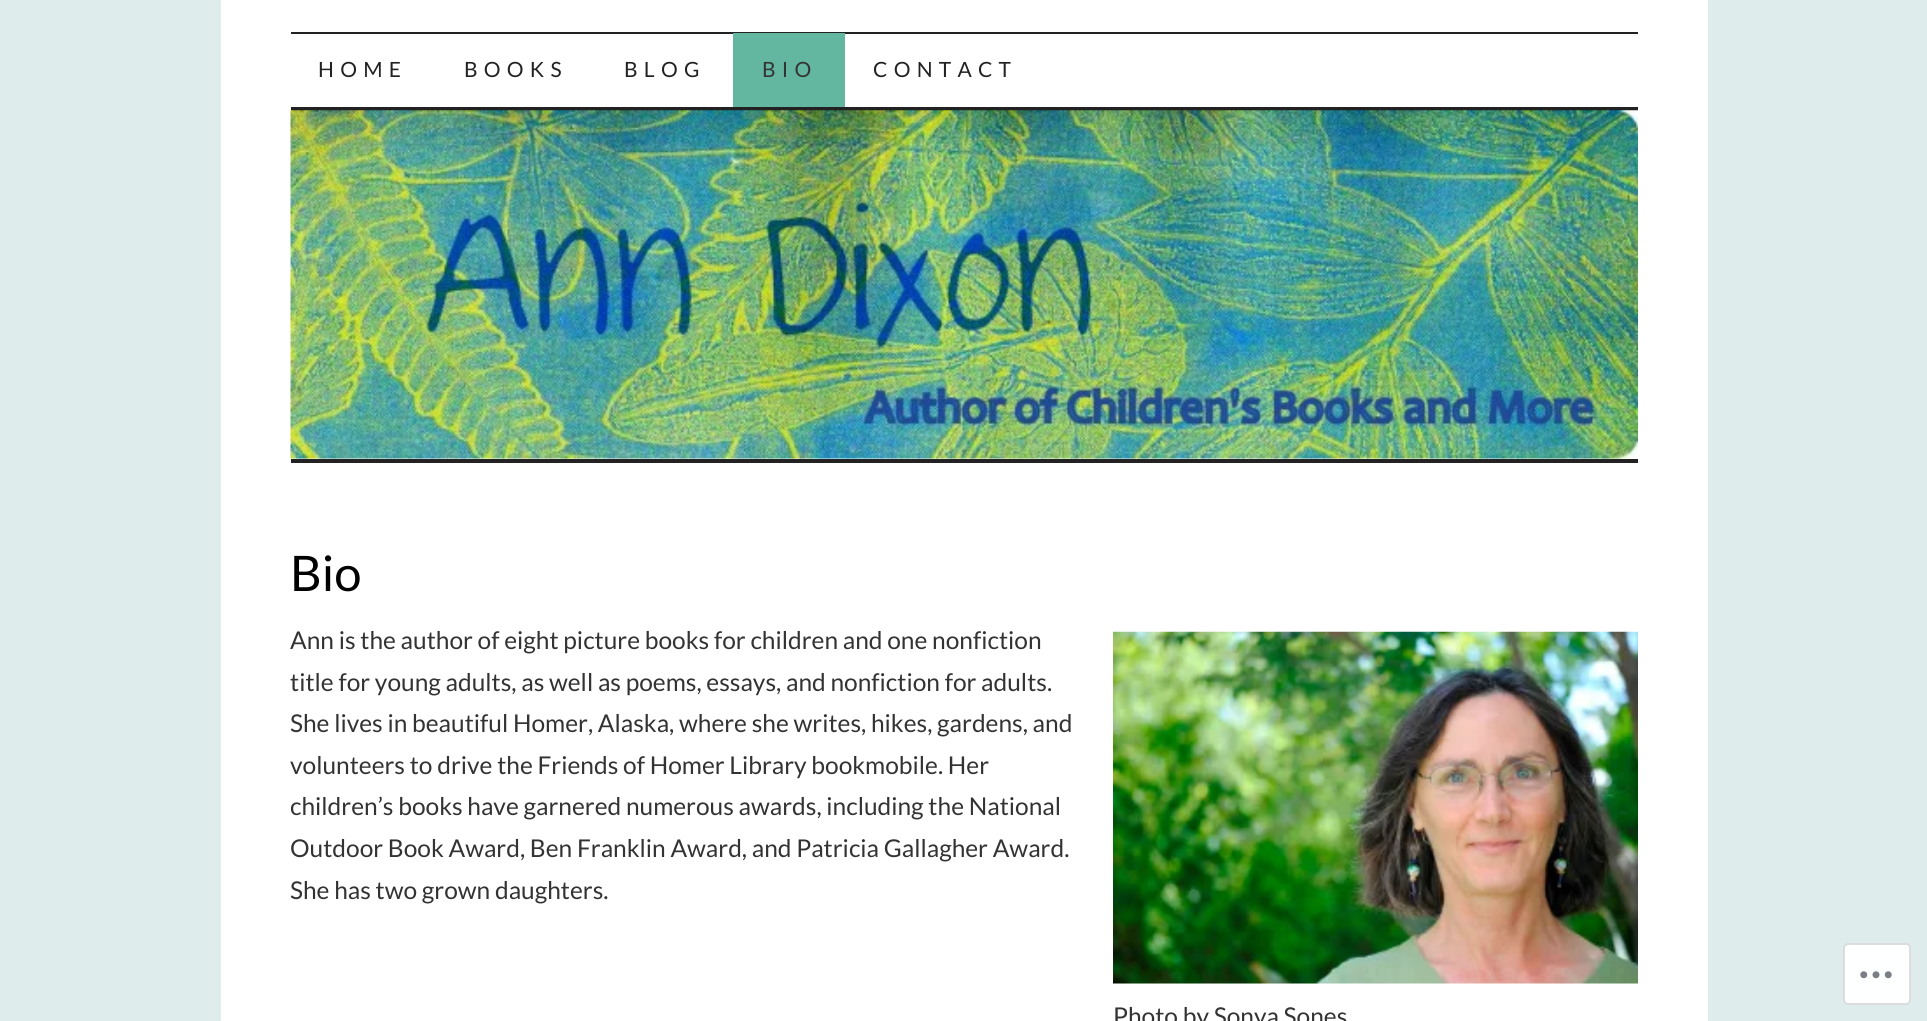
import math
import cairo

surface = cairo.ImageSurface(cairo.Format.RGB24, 1927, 1021)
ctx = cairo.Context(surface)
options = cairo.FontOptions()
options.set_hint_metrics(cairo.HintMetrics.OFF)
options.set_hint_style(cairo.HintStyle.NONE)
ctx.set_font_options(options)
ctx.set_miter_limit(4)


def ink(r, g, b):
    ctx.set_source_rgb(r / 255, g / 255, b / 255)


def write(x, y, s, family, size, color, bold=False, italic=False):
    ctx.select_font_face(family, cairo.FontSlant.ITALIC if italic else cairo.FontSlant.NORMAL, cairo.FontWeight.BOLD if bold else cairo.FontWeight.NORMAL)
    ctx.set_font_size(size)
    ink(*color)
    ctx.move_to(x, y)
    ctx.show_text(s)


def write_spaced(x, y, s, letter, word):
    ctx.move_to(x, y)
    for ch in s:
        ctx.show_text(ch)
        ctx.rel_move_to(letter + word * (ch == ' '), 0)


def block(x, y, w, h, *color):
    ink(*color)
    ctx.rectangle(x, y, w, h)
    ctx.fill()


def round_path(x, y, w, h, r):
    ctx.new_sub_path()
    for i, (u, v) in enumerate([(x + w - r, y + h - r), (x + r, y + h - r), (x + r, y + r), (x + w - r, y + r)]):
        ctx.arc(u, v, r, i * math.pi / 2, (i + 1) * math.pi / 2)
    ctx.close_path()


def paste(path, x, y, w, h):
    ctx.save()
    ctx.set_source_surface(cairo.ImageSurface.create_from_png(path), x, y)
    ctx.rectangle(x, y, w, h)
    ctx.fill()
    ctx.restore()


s1 = dict(family="Lato", size=49, color=(0, 0, 0))
s2 = dict(family="Lato", size=24.5, color=(51, 51, 51))

ink(222, 236, 236)
ctx.paint()
block(221, 0, 1487, 1021, 255, 255, 255)
block(291, 32, 1347, 2, 34, 34, 34)
block(291, 107, 1347, 4, 34, 34, 34)
ctx.select_font_face("Lato")
ctx.set_font_size(21)
write_spaced(318, 77, "HOME", 6.25, 0)
write_spaced(464, 77, "BOOKS", 6.25, 0)
write_spaced(624, 77, "BLOG", 6.25, 0)
block(733, 33, 112, 74, 99, 183, 160)
ink(51, 51, 51)
write_spaced(762, 77, "BIO", 6.25, 0)
ink(34, 34, 34)
write_spaced(873, 77, "CONTACT", 6.25, 0)
paste("pic1.png", 290, 110, 1348, 349)
block(291, 459, 1347, 4, 34, 34, 34)
write(290, 591, "Bio", **s1)
write(290, 649, "Ann is the author of eight picture books for children and one nonfiction", **s2)
write(290, 691, "title for young adults, as well as poems, essays, and nonfiction for adults.", **s2)
write(290, 732, "She lives in beautiful Homer, Alaska, where she writes, hikes, gardens, and", **s2)
write(290, 774, "volunteers to drive the Friends of Homer Library bookmobile. Her", **s2)
write(290, 815, "children’s books have garnered numerous awards, including the National", **s2)
write(290, 857, "Outdoor Book Award, Ben Franklin Award, and Patricia Gallagher Award.", **s2)
write(290, 899, "She has two grown daughters.", **s2)
paste("pic2.png", 1113, 631, 525, 353)
write(1113, 1025, "Photo by Sonya Sones", **s2)
ink(254, 255, 255)
round_path(1844, 944, 66, 60, 4)
ctx.fill_preserve()
ink(220, 220, 222)
ctx.stroke()
paste("pic3.png", 1860, 971, 32, 8)
surface.write_to_png("screenshot.png")
